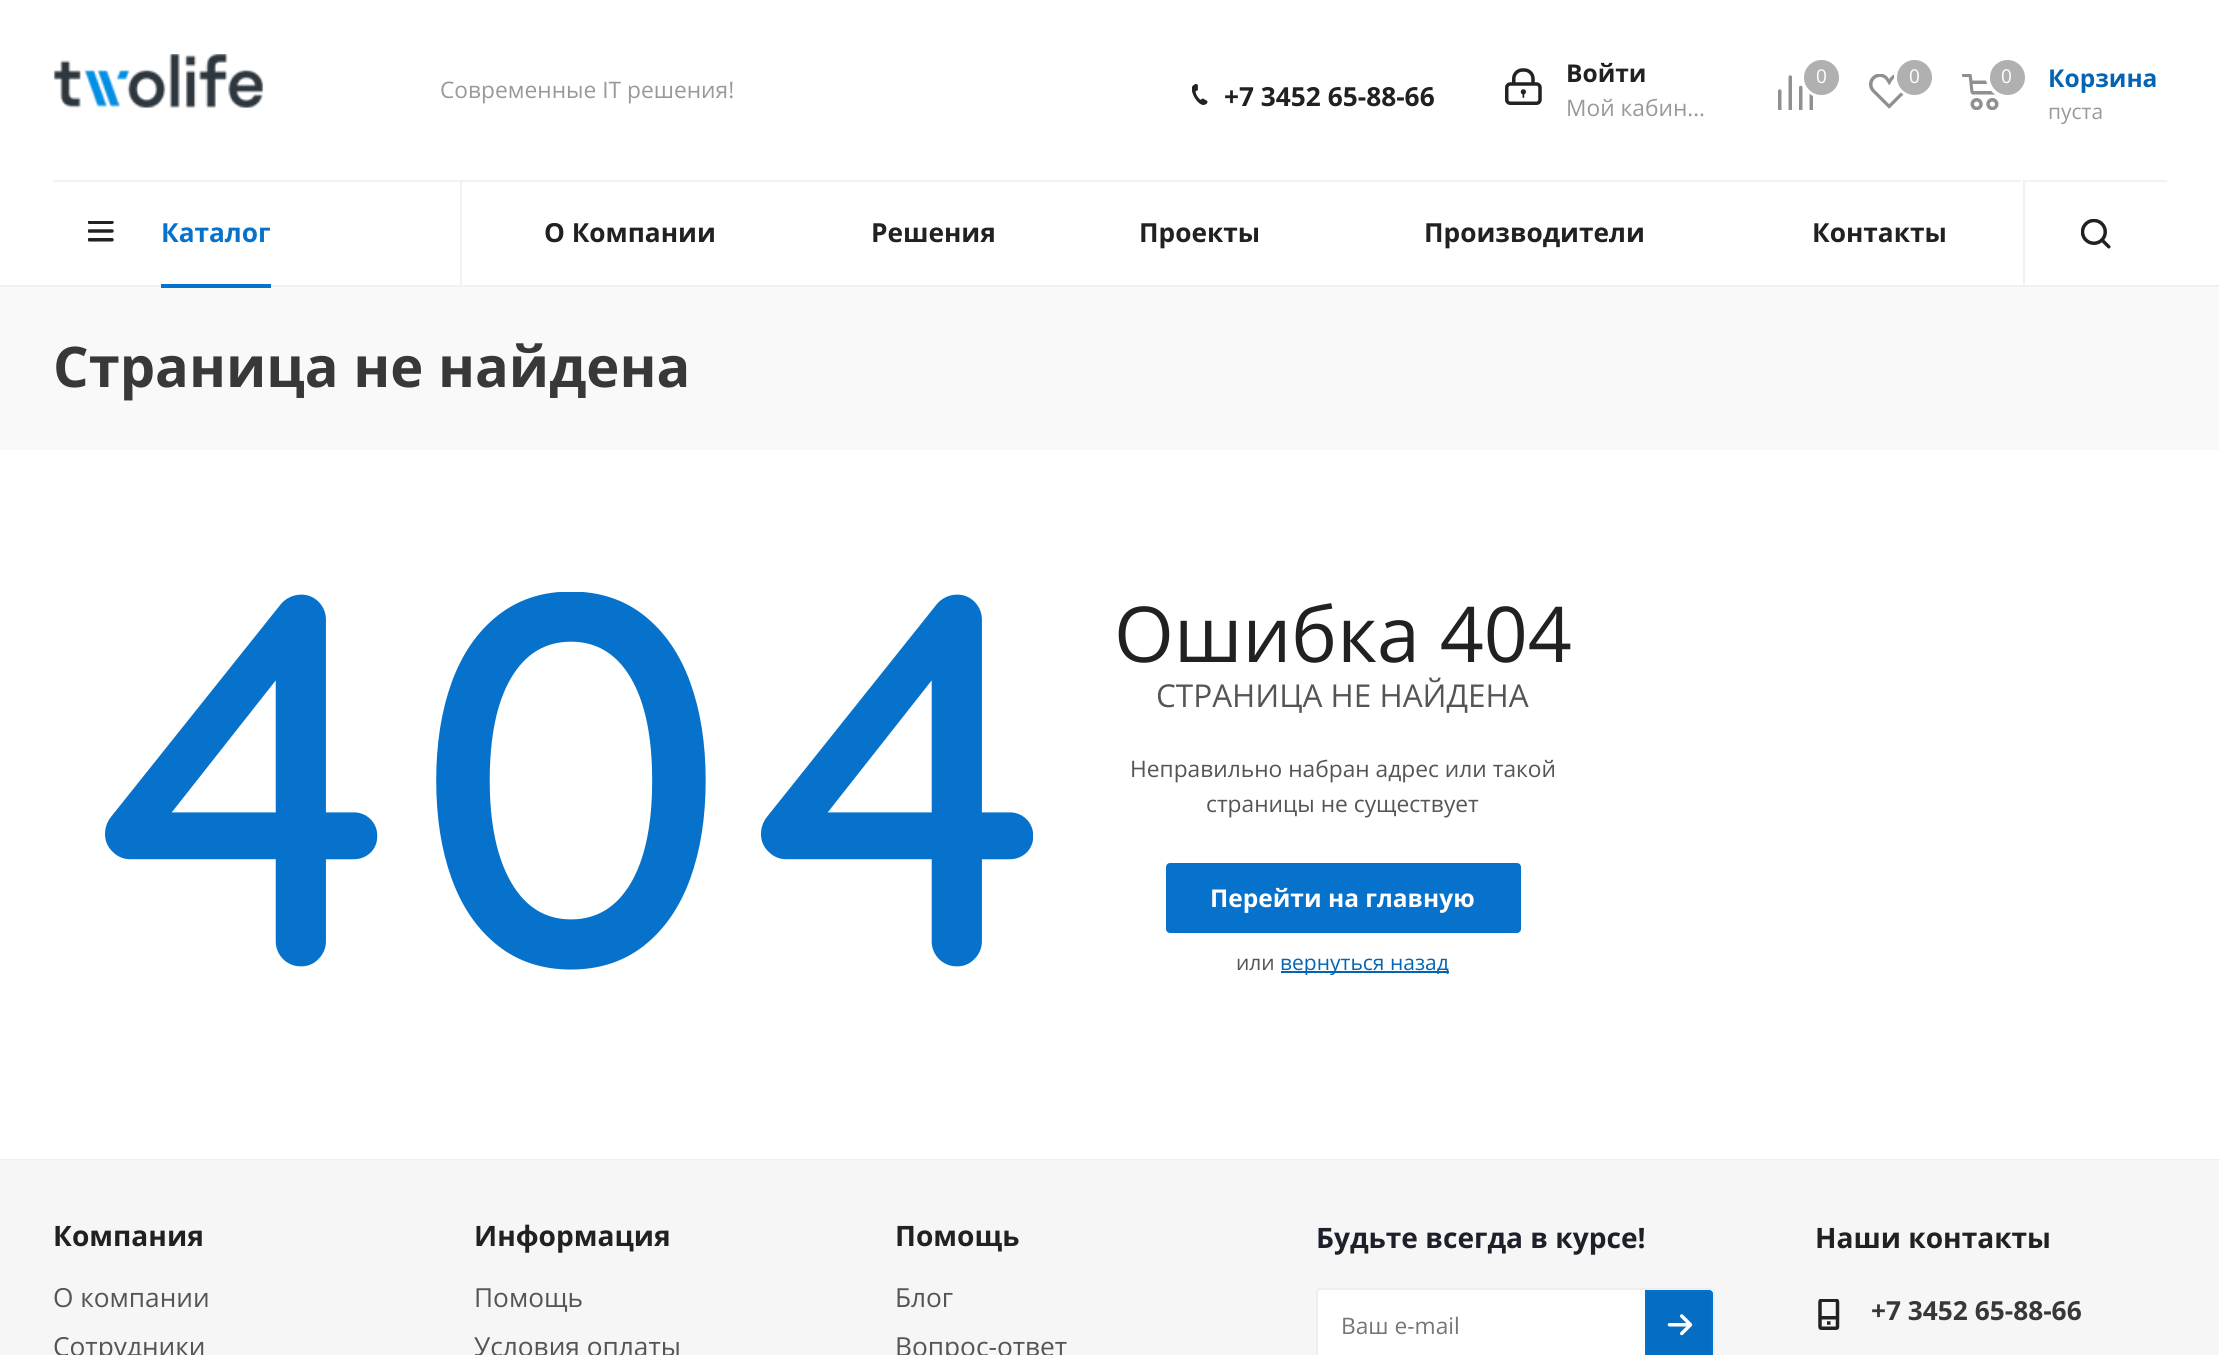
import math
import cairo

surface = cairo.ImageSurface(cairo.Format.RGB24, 2219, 1355)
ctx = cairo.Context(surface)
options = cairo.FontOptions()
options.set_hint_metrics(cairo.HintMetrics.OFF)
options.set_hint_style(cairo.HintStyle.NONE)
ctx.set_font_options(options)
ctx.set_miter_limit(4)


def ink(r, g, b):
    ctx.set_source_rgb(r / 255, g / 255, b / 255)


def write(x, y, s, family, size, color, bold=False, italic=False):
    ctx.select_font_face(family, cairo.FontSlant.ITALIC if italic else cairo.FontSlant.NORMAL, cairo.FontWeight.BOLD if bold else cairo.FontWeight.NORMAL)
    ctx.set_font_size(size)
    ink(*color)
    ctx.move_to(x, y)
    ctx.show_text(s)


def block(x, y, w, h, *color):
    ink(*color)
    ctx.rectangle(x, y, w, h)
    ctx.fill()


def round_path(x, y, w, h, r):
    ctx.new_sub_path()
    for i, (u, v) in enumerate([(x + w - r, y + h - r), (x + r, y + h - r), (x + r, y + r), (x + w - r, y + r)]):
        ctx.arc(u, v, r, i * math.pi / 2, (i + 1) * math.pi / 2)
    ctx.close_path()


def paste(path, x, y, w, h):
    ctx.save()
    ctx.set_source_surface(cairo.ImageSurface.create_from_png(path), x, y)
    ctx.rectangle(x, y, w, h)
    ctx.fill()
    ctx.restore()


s1 = dict(family="Open Sans", size=22.75, color=(153, 153, 153))
s2 = dict(family="Open Sans", size=26.25, color=(33, 33, 33), bold=True)
s3 = dict(family="Open Sans", size=24.5, color=(33, 33, 33), bold=True)
s4 = dict(family="Open Sans", size=19, color=(255, 255, 255))
s5 = dict(family="Open Sans", size=24.5, color=(4, 100, 179), bold=True)
s6 = dict(family="Open Sans", size=21, color=(153, 153, 153))
s7 = dict(family="Open Sans", size=26.25, color=(6, 114, 203), bold=True)
s8 = dict(family="Open Sans", size=56, color=(56, 56, 56), bold=True)
s9 = dict(family="Open Sans", size=77, color=(33, 33, 33))
s10 = dict(family="Open Sans", size=31.5, color=(85, 85, 85))
s11 = dict(family="Open Sans", size=22.75, color=(85, 85, 85))
s12 = dict(family="Open Sans", size=24.5, color=(255, 255, 255), bold=True)
s13 = dict(family="Open Sans", size=21, color=(85, 85, 85))
s14 = dict(family="Open Sans", size=21, color=(4, 100, 179))
s15 = dict(family="Open Sans", size=28.1, color=(33, 33, 33), bold=True)
s16 = dict(family="Open Sans", size=26.25, color=(85, 85, 85))
s17 = dict(family="Open Sans", size=28.1, color=(29, 32, 41), bold=True)
s18 = dict(family="Open Sans", size=22.75, color=(117, 117, 117))
s19 = dict(family="Open Sans", size=26.25, color=(56, 56, 56), bold=True)

ink(255, 255, 255)
ctx.paint()
paste("pic1.png", 53, 54, 211, 54)
write(440, 98, "Современные IT решения!", **s1)
paste("pic2.png", 1192, 84, 16, 21)
write(1224, 106, "+7 3452 65-88-66", **s2)
paste("pic3.png", 1505, 68, 37, 37)
write(1566, 82, "Войти", **s3)
write(1566, 116, "Мой кабин…", **s1)
paste("pic4.png", 1778, 75, 35, 35)
ctx.arc(1822, 77, 19, 0, 2 * math.pi)
ink(255, 255, 255)
ctx.set_line_width(4)
ctx.stroke()
ink(176, 176, 176)
ctx.arc(1821.5, 77.5, 17.5, 0, 2 * math.pi)
ctx.fill()
write(1816, 83, "0", **s4)
paste("pic5.png", 1869, 74, 35, 35)
ctx.arc(1915, 77, 19, 0, 2 * math.pi)
ctx.stroke()
ink(176, 176, 176)
ctx.arc(1914.5, 77.5, 17.5, 0, 2 * math.pi)
ctx.fill()
write(1909, 83, "0", **s4)
paste("pic6.png", 1962, 74, 37, 36)
ctx.arc(2007, 77, 19, 0, 2 * math.pi)
ctx.stroke()
ctx.arc(2007, 77, 19, 0, 2 * math.pi)
ctx.stroke()
ink(176, 176, 176)
ctx.arc(2007.5, 77.5, 17.5, 0, 2 * math.pi)
ctx.fill()
write(2001, 83, "0", **s4)
write(2048, 87, "Корзина", **s5)
write(2048, 119, "пуста", **s6)
block(0, 285, 2219, 2, 242, 242, 242)
block(53, 180, 1968, 2, 242, 242, 242)
block(460, 182, 2, 103, 242, 242, 242)
paste("pic7.png", 88, 221, 26, 21)
write(161, 242, "Каталог", **s7)
block(0, 287, 2219, 163, 249, 249, 249)
block(161, 284, 110, 4, 6, 114, 203)
write(544, 242, "О Компании", **s2)
write(871, 242, "Решения", **s2)
write(1139, 242, "Проекты", **s2)
write(1424, 242, "Производители", **s2)
write(1812, 242, "Контакты", **s2)
block(2023, 180, 144, 2, 242, 242, 242)
block(2023, 182, 2, 103, 242, 242, 242)
paste("pic8.png", 2081, 219, 30, 30)
write(53, 387, "Страница не найдена", **s8)
paste("pic9.png", 105, 592, 928, 378)
write(1114, 662, "Ошибка 404", **s9)
write(1156, 707, "СТРАНИЦА НЕ НАЙДЕНА", **s10)
write(1130, 777, "Неправильно набран адрес или такой", **s11)
write(1206, 812, "страницы не существует", **s11)
ink(6, 114, 203)
round_path(1167, 864, 353, 68, 3)
ctx.fill_preserve()
ctx.set_line_width(2)
ctx.stroke()
write(1210, 907, "Перейти на главную", **s12)
write(1236, 970, "или", **s13)
block(1281, 971, 168, 2, 4, 100, 179)
write(1280, 970, "вернуться назад", **s14)
block(0, 1159, 2219, 1, 238, 238, 238)
block(0, 1160, 2219, 195, 246, 246, 247)
write(53, 1246, "Компания", **s15)
write(53, 1307, "О компании", **s16)
write(53, 1356, "Сотрудники", **s16)
write(474, 1246, "Информация", **s15)
write(474, 1307, "Помощь", **s16)
write(474, 1356, "Условия оплаты", **s16)
write(895, 1246, "Помощь", **s15)
write(895, 1307, "Блог", **s16)
write(895, 1356, "Вопрос-ответ", **s16)
write(1316, 1248, "Будьте всегда в курсе!", **s17)
ink(255, 255, 255)
round_path(1317, 1289, 397, 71, 3)
ctx.fill_preserve()
ink(238, 238, 238)
ctx.stroke()
write(1341, 1334, "Ваш e-mail", **s18)
ink(5, 109, 194)
ctx.new_path()
ctx.move_to(1645, 1290)
ctx.line_to(1709, 1290)
ctx.curve_to(1711, 1290, 1713, 1292, 1713, 1294)
ctx.line_to(1713, 1355)
ctx.curve_to(1713, 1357, 1711, 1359, 1709, 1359)
ctx.line_to(1645, 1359)
ctx.close_path()
ctx.fill()
paste("pic10.png", 1667, 1314, 26, 22)
ctx.new_path()
ctx.move_to(1646, 1291)
ctx.line_to(1709, 1291)
ctx.curve_to(1710.5, 1291, 1712, 1292.5, 1712, 1294)
ctx.line_to(1712, 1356)
ctx.curve_to(1712, 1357.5, 1710.5, 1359, 1709, 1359)
ctx.line_to(1646, 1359)
ctx.close_path()
ink(6, 114, 203)
ctx.stroke()
write(1815, 1248, "Наши контакты", **s15)
paste("pic11.png", 1818, 1299, 22, 31)
write(1871, 1320, "+7 3452 65-88-66", **s19)
surface.write_to_png("screenshot.png")
